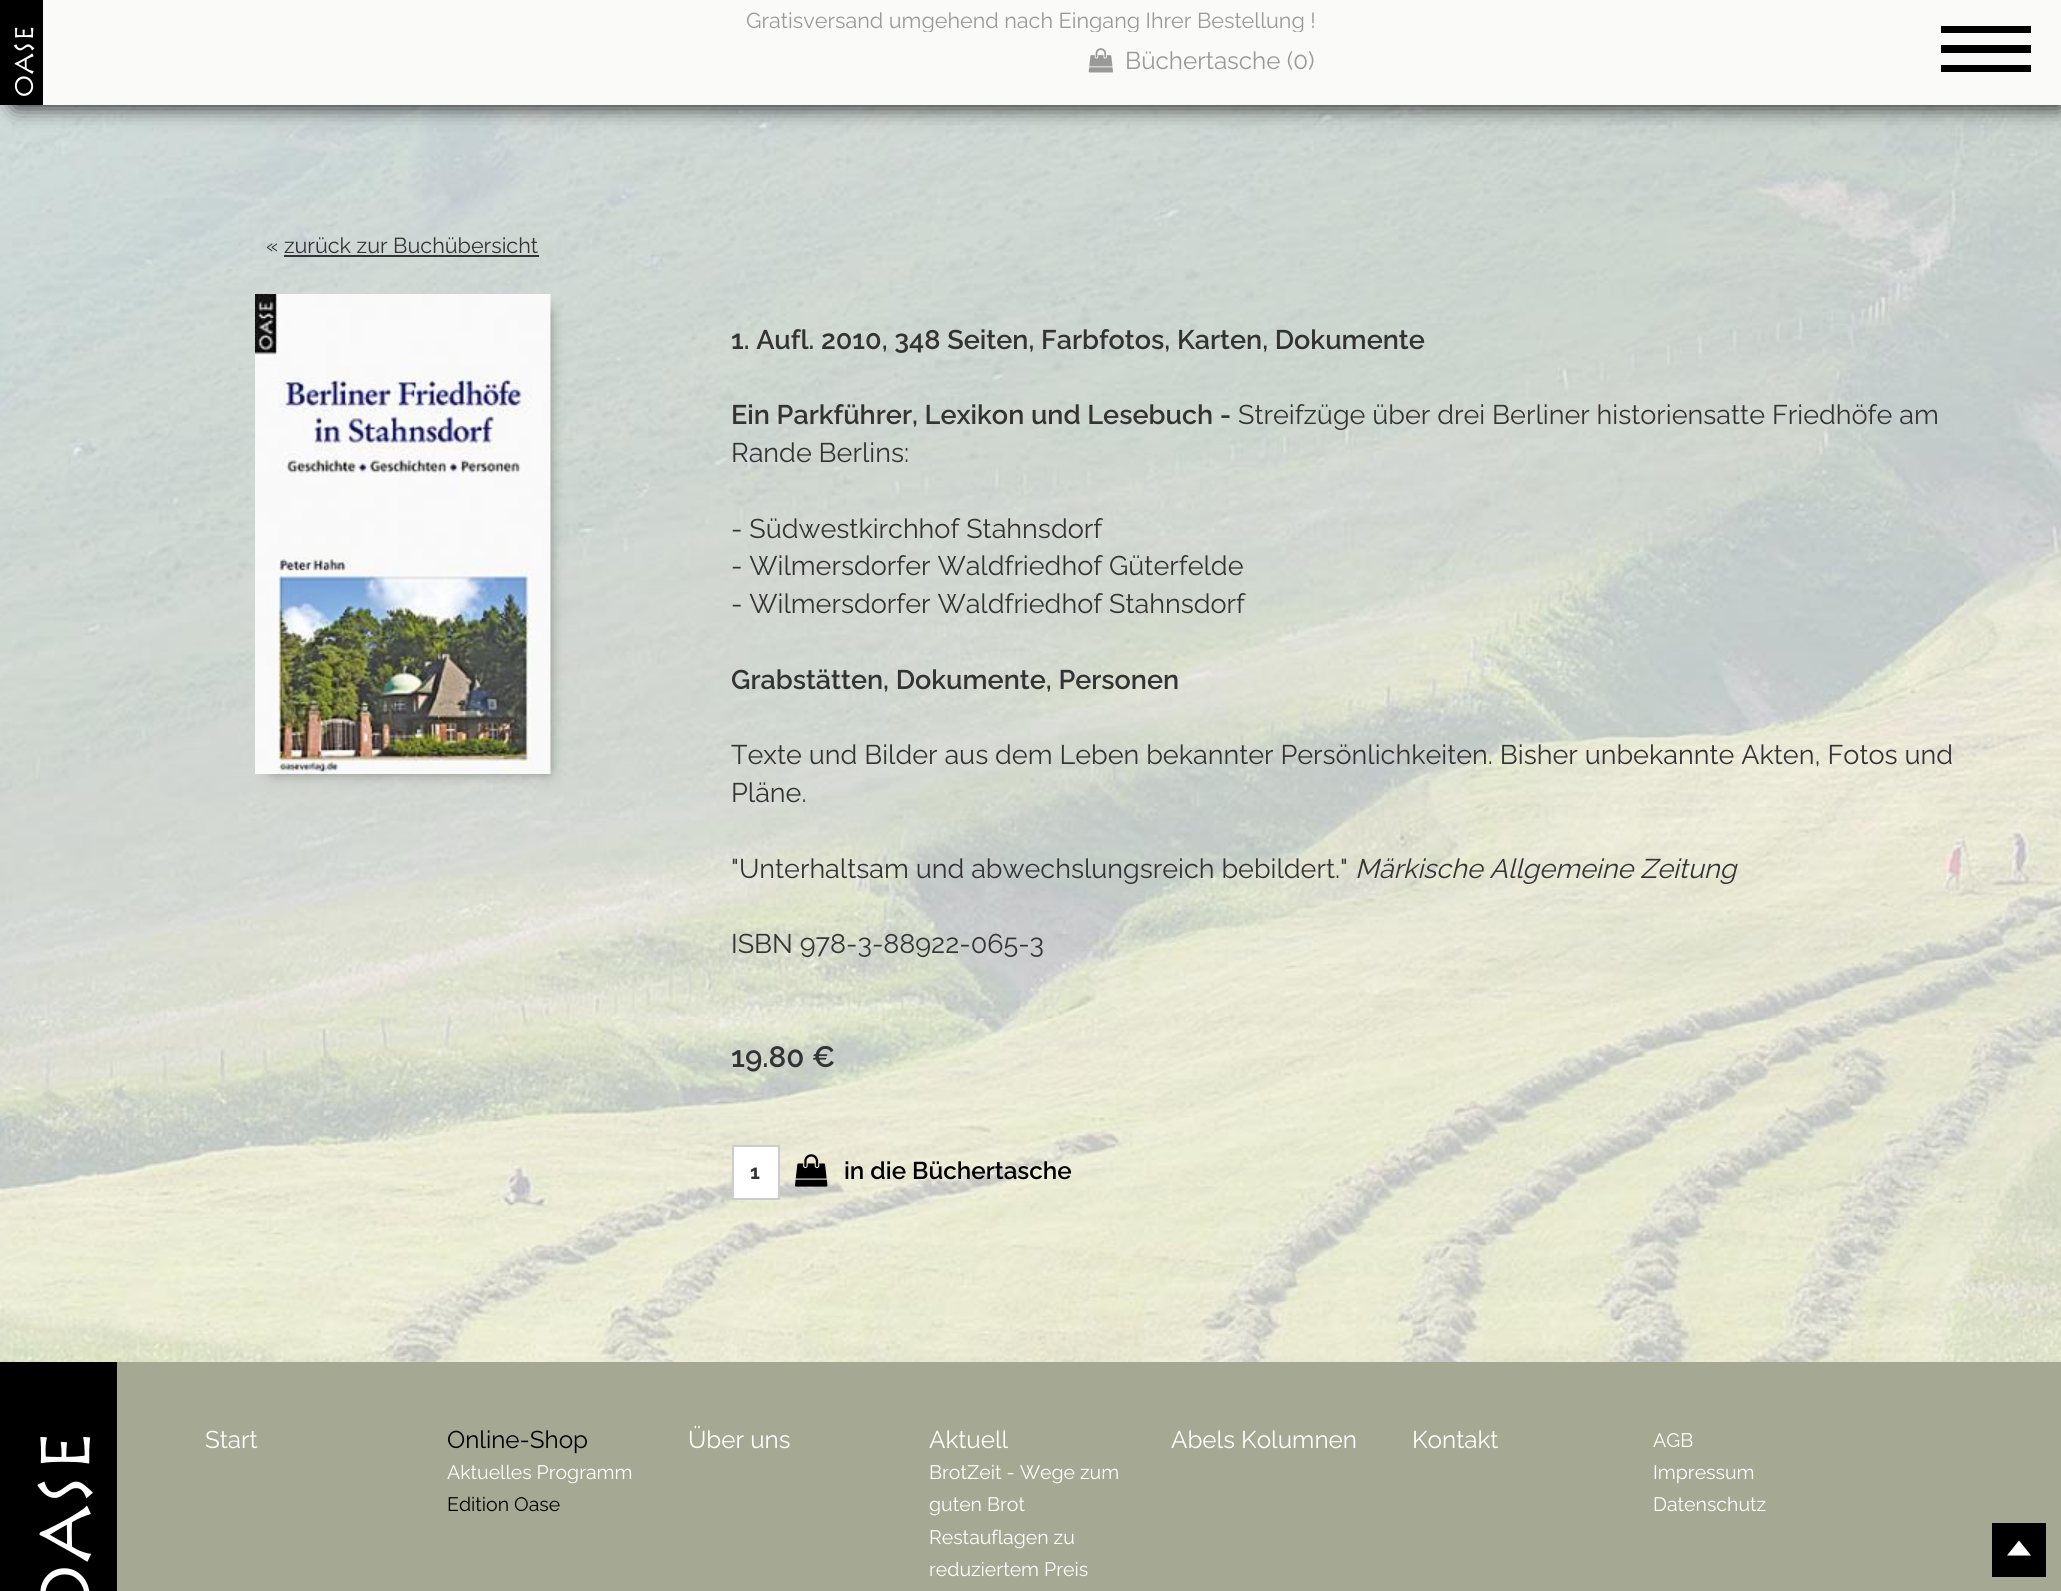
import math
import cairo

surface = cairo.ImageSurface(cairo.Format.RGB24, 2061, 1591)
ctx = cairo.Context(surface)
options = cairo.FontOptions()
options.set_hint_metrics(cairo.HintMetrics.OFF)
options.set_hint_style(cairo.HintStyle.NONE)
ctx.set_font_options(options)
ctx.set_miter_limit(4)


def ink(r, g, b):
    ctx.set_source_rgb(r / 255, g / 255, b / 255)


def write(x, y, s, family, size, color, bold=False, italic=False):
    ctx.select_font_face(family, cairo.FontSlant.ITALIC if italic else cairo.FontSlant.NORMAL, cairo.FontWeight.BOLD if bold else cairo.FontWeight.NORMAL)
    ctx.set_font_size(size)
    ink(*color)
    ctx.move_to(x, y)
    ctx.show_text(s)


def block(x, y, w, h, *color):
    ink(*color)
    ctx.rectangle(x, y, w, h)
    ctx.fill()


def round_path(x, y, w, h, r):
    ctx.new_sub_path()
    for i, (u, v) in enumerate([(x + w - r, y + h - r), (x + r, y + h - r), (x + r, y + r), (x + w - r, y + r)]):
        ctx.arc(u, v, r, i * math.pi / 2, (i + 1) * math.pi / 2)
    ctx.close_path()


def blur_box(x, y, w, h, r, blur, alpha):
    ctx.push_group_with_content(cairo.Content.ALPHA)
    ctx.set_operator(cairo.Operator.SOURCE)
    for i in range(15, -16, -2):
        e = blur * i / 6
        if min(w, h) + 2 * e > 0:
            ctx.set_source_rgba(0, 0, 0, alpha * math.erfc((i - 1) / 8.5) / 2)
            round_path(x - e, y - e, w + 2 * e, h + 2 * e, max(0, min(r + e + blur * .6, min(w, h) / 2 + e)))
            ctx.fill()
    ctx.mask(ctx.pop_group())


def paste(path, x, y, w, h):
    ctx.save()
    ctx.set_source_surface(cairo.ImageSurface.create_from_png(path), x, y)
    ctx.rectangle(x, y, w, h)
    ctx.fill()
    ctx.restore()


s1 = dict(family="Raleway Thin", size=21.6, color=(153, 153, 153))
s2 = dict(family="Raleway Thin", size=24.25, color=(153, 153, 153))
s3 = dict(family="Raleway Thin", size=21.6, color=(51, 51, 51))
s4 = dict(family="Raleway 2 Thin", size=27, color=(51, 51, 51))
s5 = dict(family="Raleway Thin", size=27, color=(51, 51, 51))
s6 = dict(family="Raleway Thin", size=27, color=(51, 51, 51), italic=True)
s7 = dict(family="Raleway 2 Thin", size=29.5, color=(51, 51, 51))
s8 = dict(family="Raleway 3 Thin", size=20, color=(51, 51, 51))
s9 = dict(family="Raleway 2 Thin", size=24.25, color=(0, 0, 0))
s10 = dict(family="Raleway Thin", size=24.25, color=(255, 255, 255))
s11 = dict(family="Raleway Thin", size=24.25, color=(0, 0, 0))
s12 = dict(family="Raleway Thin", size=19.5, color=(255, 255, 255))
s13 = dict(family="Raleway Thin", size=19.5, color=(0, 0, 0))

ink(255, 255, 255)
ctx.paint()
paste("pic3.png", 0, 105, 2061, 1257)
ink(0, 0, 0)
blur_box(15, 15, 2046, 90, 0, 11, 1)
block(43, 0, 2018, 105, 250, 250, 249)
paste("pic1.png", 0, 0, 43, 105)
ctx.save()
ctx.rectangle(746, 11, 570, 21)
ctx.clip()
write(746, 28, "Gratisversand umgehend nach Eingang Ihrer Bestellung !", **s1)
ctx.restore()
paste("pic2.png", 1088, 48, 25, 25)
write(1125, 69, "Büchertasche (0)", **s2)
block(1941, 26, 90, 7, 0, 0, 0)
block(1941, 45, 90, 8, 0, 0, 0)
block(1941, 65, 90, 7, 0, 0, 0)
write(266, 253, "« zurück zur Buchübersicht", **s3)
block(284, 255, 255, 2, 51, 51, 51)
ink(0, 0, 0)
blur_box(273, 312, 275, 459, 0, 7.5, 0.5)
paste("pic4.png", 255, 294, 296, 480)
write(731, 349, "1. Aufl. 2010, 348 Seiten, Farbfotos, Karten, Dokumente", **s4)
write(731, 424, "Ein Parkführer, Lexikon und Lesebuch -", **s4)
write(1238, 424, "Streifzüge über drei Berliner historiensatte Friedhöfe am", **s5)
write(731, 462, "Rande Berlins:", **s5)
write(731, 538, "- Südwestkirchhof Stahnsdorf", **s5)
write(731, 575, "- Wilmersdorfer Waldfriedhof Güterfelde", **s5)
write(731, 613, "- Wilmersdorfer Waldfriedhof Stahnsdorf", **s5)
write(731, 689, "Grabstätten, Dokumente, Personen", **s4)
write(731, 764, "Texte und Bilder aus dem Leben bekannter Persönlichkeiten. Bisher unbekannte Akten, Fotos und", **s5)
write(731, 802, "Pläne.", **s5)
write(731, 878, "\"Unterhaltsam und abwechslungsreich bebildert.\"", **s5)
write(1355, 878, "Märkische Allgemeine Zeitung", **s6)
write(731, 953, "ISBN 978-3-88922-065-3", **s5)
write(731, 1067, "19.80 €", **s7)
ink(255, 255, 255)
ctx.rectangle(733, 1146, 46, 53)
ctx.fill_preserve()
ink(204, 204, 204)
ctx.stroke()
write(750, 1179, "1", **s8)
paste("pic5.png", 795, 1154, 33, 33)
write(844, 1179, "in die Büchertasche", **s9)
block(117, 1362, 1944, 229, 165, 169, 147)
paste("pic6.png", 0, 1362, 117, 229)
write(205, 1448, "Start", **s10)
write(447, 1448, "Online-Shop", **s11)
write(447, 1479, "Aktuelles Programm", **s12)
write(447, 1511, "Edition Oase", **s13)
write(688, 1448, "Über uns", **s10)
write(929, 1448, "Aktuell", **s10)
write(929, 1479, "BrotZeit - Wege zum", **s12)
write(929, 1511, "guten Brot", **s12)
write(929, 1544, "Restauflagen zu", **s12)
write(929, 1576, "reduziertem Preis", **s12)
write(1171, 1448, "Abels Kolumnen", **s10)
write(1412, 1448, "Kontakt", **s10)
write(1653, 1447, "AGB", **s12)
write(1653, 1479, "Impressum", **s12)
write(1653, 1511, "Datenschutz", **s12)
block(1992, 1523, 54, 54, 0, 0, 0)
ink(255, 255, 255)
ctx.new_path()
ctx.move_to(2031, 1555.5)
ctx.line_to(2007, 1555.5)
ctx.line_to(2019, 1540.5)
ctx.close_path()
ctx.fill()
surface.write_to_png("screenshot.png")
